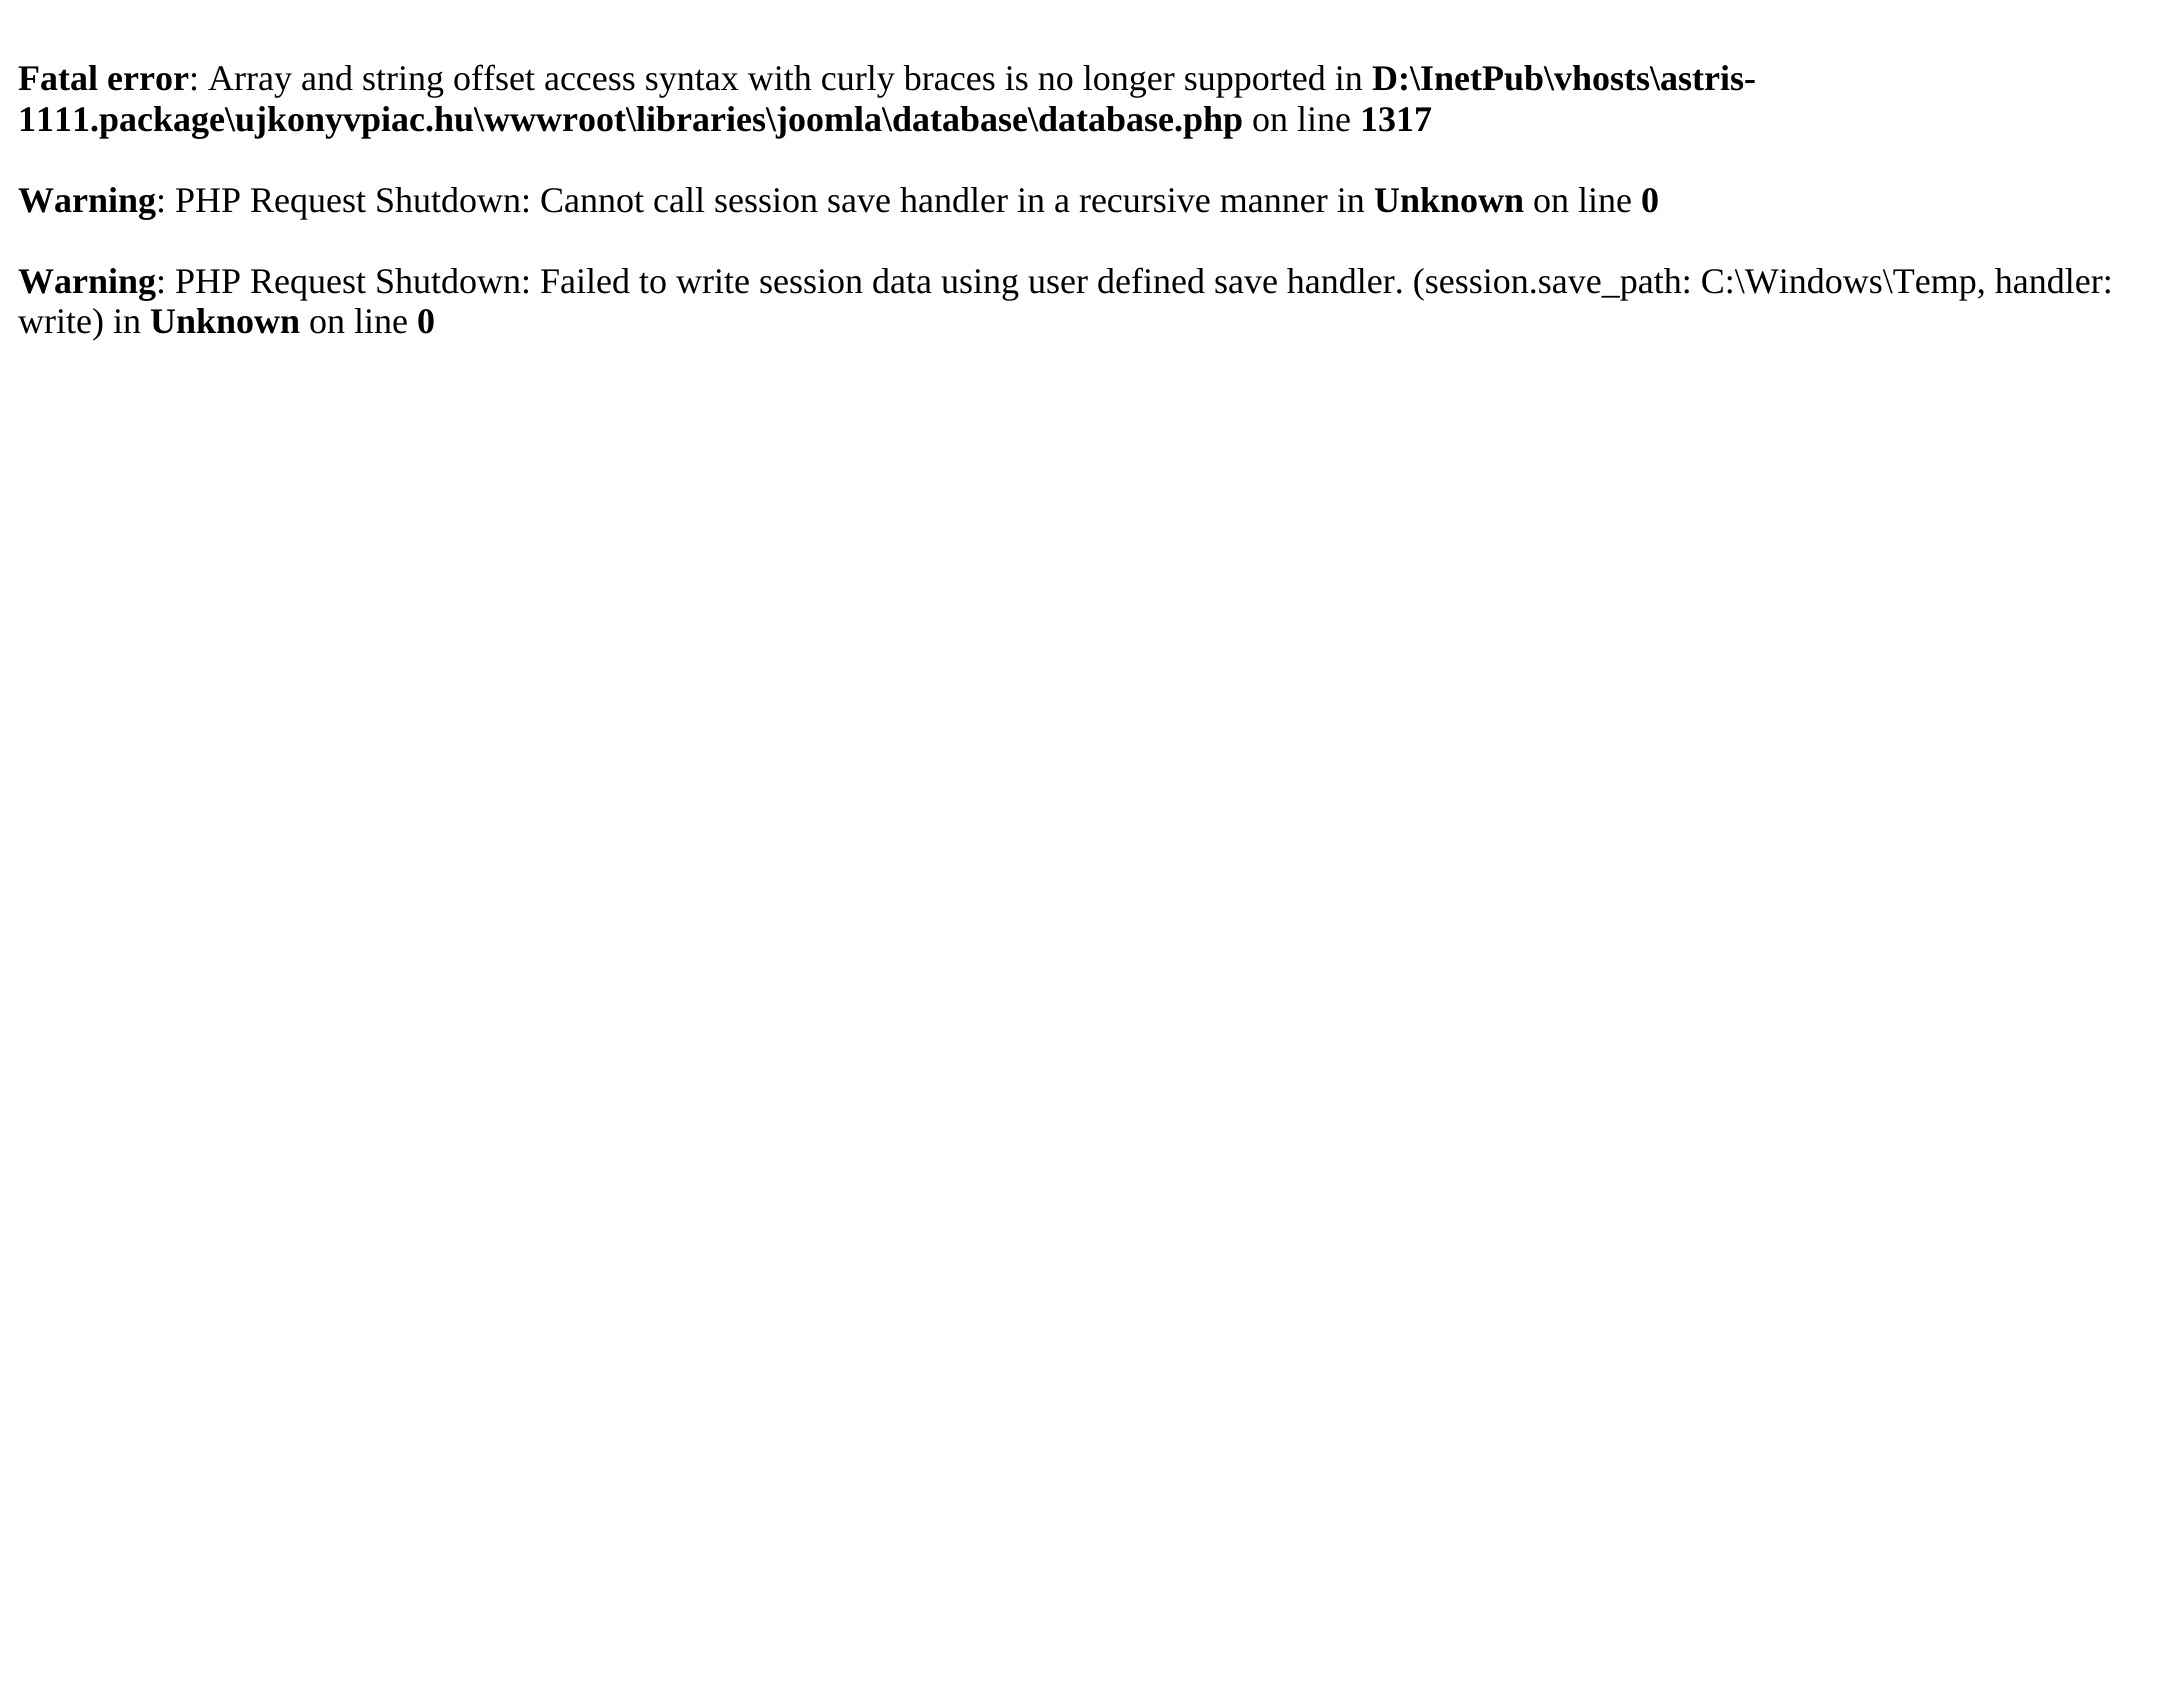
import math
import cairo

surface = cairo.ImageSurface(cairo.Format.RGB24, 2174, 1682)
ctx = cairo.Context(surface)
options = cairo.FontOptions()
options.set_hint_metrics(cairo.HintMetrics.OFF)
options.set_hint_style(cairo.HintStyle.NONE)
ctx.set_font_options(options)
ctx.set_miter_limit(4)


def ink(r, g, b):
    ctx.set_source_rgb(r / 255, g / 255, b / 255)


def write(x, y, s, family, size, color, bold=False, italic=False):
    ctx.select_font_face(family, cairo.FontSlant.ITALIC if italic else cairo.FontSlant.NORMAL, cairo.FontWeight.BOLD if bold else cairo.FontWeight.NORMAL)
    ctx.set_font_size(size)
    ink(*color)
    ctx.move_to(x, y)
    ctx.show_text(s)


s1 = dict(family="Liberation Serif", size=36, color=(0, 0, 0), bold=True)
s2 = dict(family="Liberation Serif", size=36, color=(0, 0, 0))

ink(255, 255, 255)
ctx.paint()
write(18, 90, "Fatal error", **s1)
write(189, 90, ": Array and string offset access syntax with curly braces is no longer supported in", **s2)
write(1372, 90, "D:\\InetPub\\vhosts\\astris-", **s1)
write(18, 131, "1111.package\\ujkonyvpiac.hu\\wwwroot\\libraries\\joomla\\database\\database.php", **s1)
write(1252, 131, "on line", **s2)
write(1360, 131, "1317", **s1)
write(18, 212, "Warning", **s1)
write(156, 212, ": PHP Request Shutdown: Cannot call session save handler in a recursive manner in", **s2)
write(1374, 212, "Unknown", **s1)
write(1533, 212, "on line", **s2)
write(1641, 212, "0", **s1)
write(18, 293, "Warning", **s1)
write(156, 293, ": PHP Request Shutdown: Failed to write session data using user defined save handler. (session.save_path: C:\\Windows\\Temp, handler:", **s2)
write(18, 333, "write) in", **s2)
write(150, 333, "Unknown", **s1)
write(309, 333, "on line", **s2)
write(417, 333, "0", **s1)
surface.write_to_png("screenshot.png")
